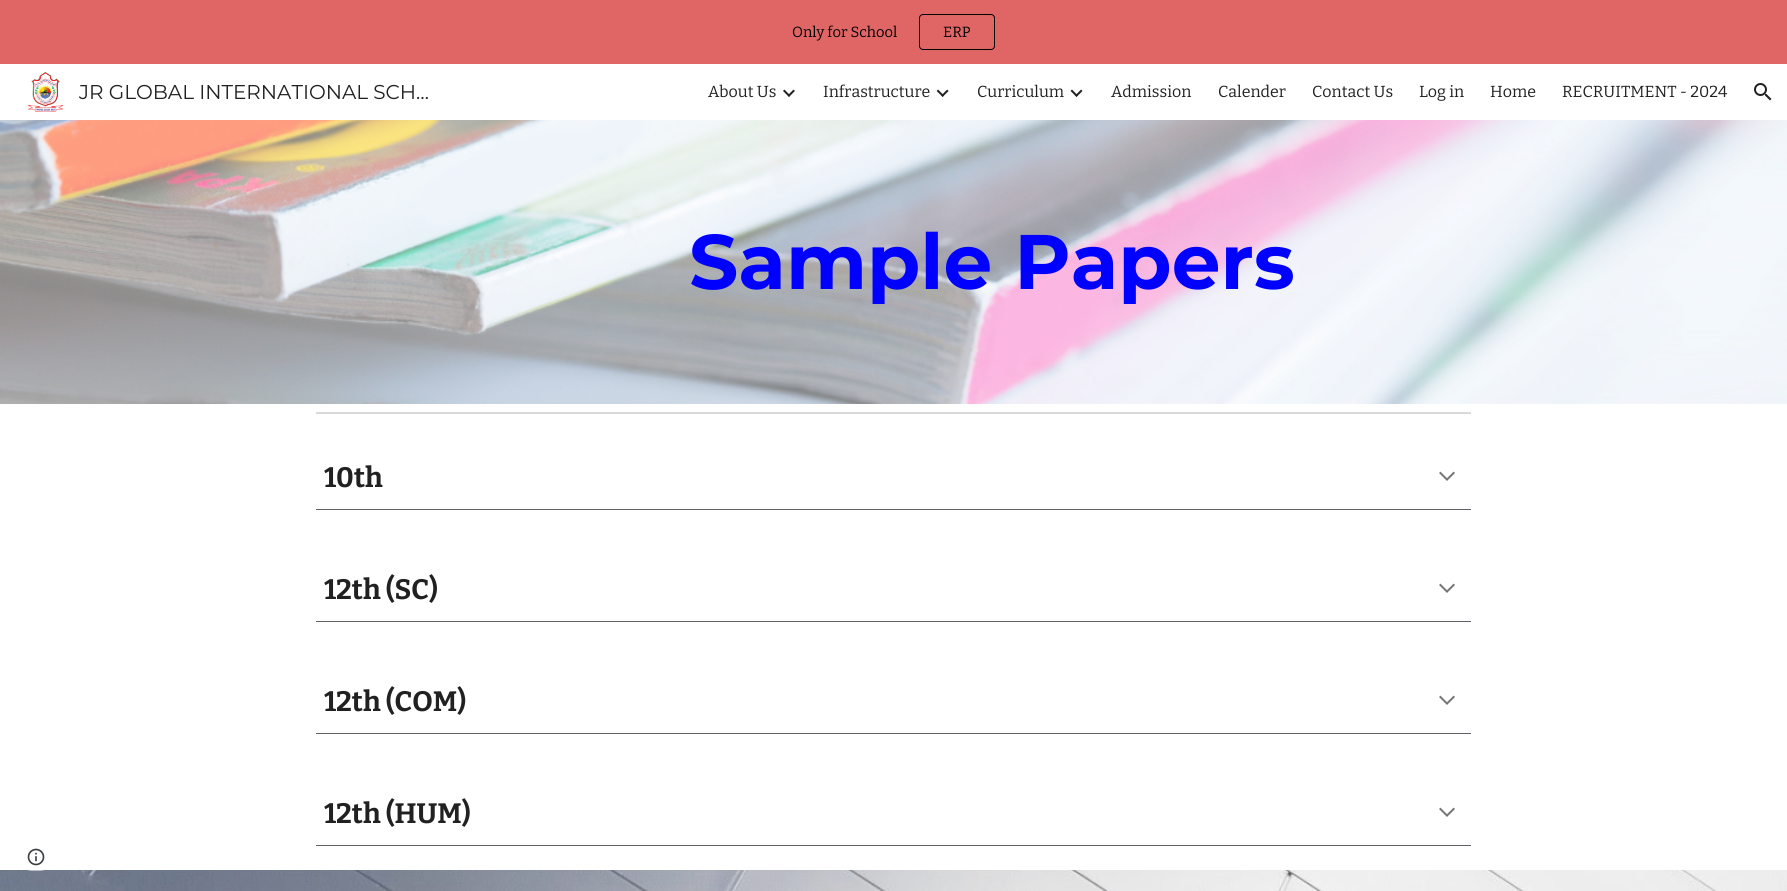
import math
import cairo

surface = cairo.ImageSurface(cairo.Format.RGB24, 1787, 891)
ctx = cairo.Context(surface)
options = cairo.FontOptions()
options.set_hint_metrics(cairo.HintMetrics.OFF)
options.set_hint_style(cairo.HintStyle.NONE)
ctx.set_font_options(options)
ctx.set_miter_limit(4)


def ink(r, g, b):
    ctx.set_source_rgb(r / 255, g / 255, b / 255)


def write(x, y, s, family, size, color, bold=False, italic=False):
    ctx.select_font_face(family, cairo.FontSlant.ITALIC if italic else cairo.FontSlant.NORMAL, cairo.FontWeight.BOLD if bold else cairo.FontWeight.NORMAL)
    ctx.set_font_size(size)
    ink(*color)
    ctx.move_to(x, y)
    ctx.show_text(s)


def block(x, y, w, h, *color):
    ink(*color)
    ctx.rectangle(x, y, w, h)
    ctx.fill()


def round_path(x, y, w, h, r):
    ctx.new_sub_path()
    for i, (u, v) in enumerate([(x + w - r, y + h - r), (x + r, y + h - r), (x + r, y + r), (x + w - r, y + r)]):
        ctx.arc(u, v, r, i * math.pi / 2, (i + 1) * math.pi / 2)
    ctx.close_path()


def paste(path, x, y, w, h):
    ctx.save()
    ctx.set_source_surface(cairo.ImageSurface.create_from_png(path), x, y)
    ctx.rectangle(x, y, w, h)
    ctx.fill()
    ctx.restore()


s1 = dict(family="Bitter", size=14.75, color=(0, 0, 0))
s2 = dict(family="Montserrat", size=20, color=(33, 33, 33))
s3 = dict(family="Bitter", size=16, color=(33, 33, 33))
s4 = dict(family="Montserrat", size=77.25, color=(0, 0, 255), bold=True)
s5 = dict(family="Bitter", size=28, color=(33, 33, 33), bold=True)

ink(255, 255, 255)
ctx.paint()
block(0, 0, 1787, 64, 224, 102, 102)
write(792, 37, "Only for School", **s1)
round_path(919.5, 14.5, 75, 35, 3.5)
ctx.set_line_width(1)
ctx.stroke()
write(943, 37, "ERP", **s1)
paste("pic1.png", 28, 72, 35, 40)
write(79, 99, "JR GLOBAL INTERNATIONAL SCH…", **s2)
write(708, 97, "About Us", **s3)
paste("pic2.png", 783, 89, 12, 8)
write(823, 97, "Infrastructure", **s3)
paste("pic3.png", 936, 89, 13, 8)
write(977, 97, "Curriculum", **s3)
paste("pic4.png", 1070, 89, 13, 8)
write(1111, 97, "Admission", **s3)
write(1218, 97, "Calender", **s3)
write(1312, 97, "Contact Us", **s3)
write(1419, 97, "Log in", **s3)
write(1490, 97, "Home", **s3)
write(1562, 97, "RECRUITMENT - 2024", **s3)
paste("pic5.png", 1754, 83, 18, 18)
paste("pic6.png", 0, 120, 1787, 284)
write(689, 289, "Sample Papers", **s4)
block(316, 412, 1155, 2, 217, 217, 217)
block(316, 509, 1155, 1, 95, 99, 104)
write(324, 487, "10th", **s5)
paste("pic7.png", 1439, 471, 16, 10)
block(316, 621, 1155, 1, 95, 99, 104)
write(324, 599, "12th (SC)", **s5)
paste("pic7.png", 1439, 583, 16, 10)
block(316, 733, 1155, 1, 95, 99, 104)
write(324, 711, "12th (COM)", **s5)
paste("pic7.png", 1439, 695, 16, 10)
block(316, 845, 1155, 1, 95, 99, 104)
write(324, 823, "12th (HUM)", **s5)
paste("pic7.png", 1439, 807, 16, 10)
paste("pic9.png", 0, 870, 1787, 21)
ctx.set_source_rgba(1, 1, 1, 0.5)
round_path(22, 843, 28, 28, 10)
ctx.fill()
paste("pic8.png", 27, 848, 18, 18)
surface.write_to_png("screenshot.png")
